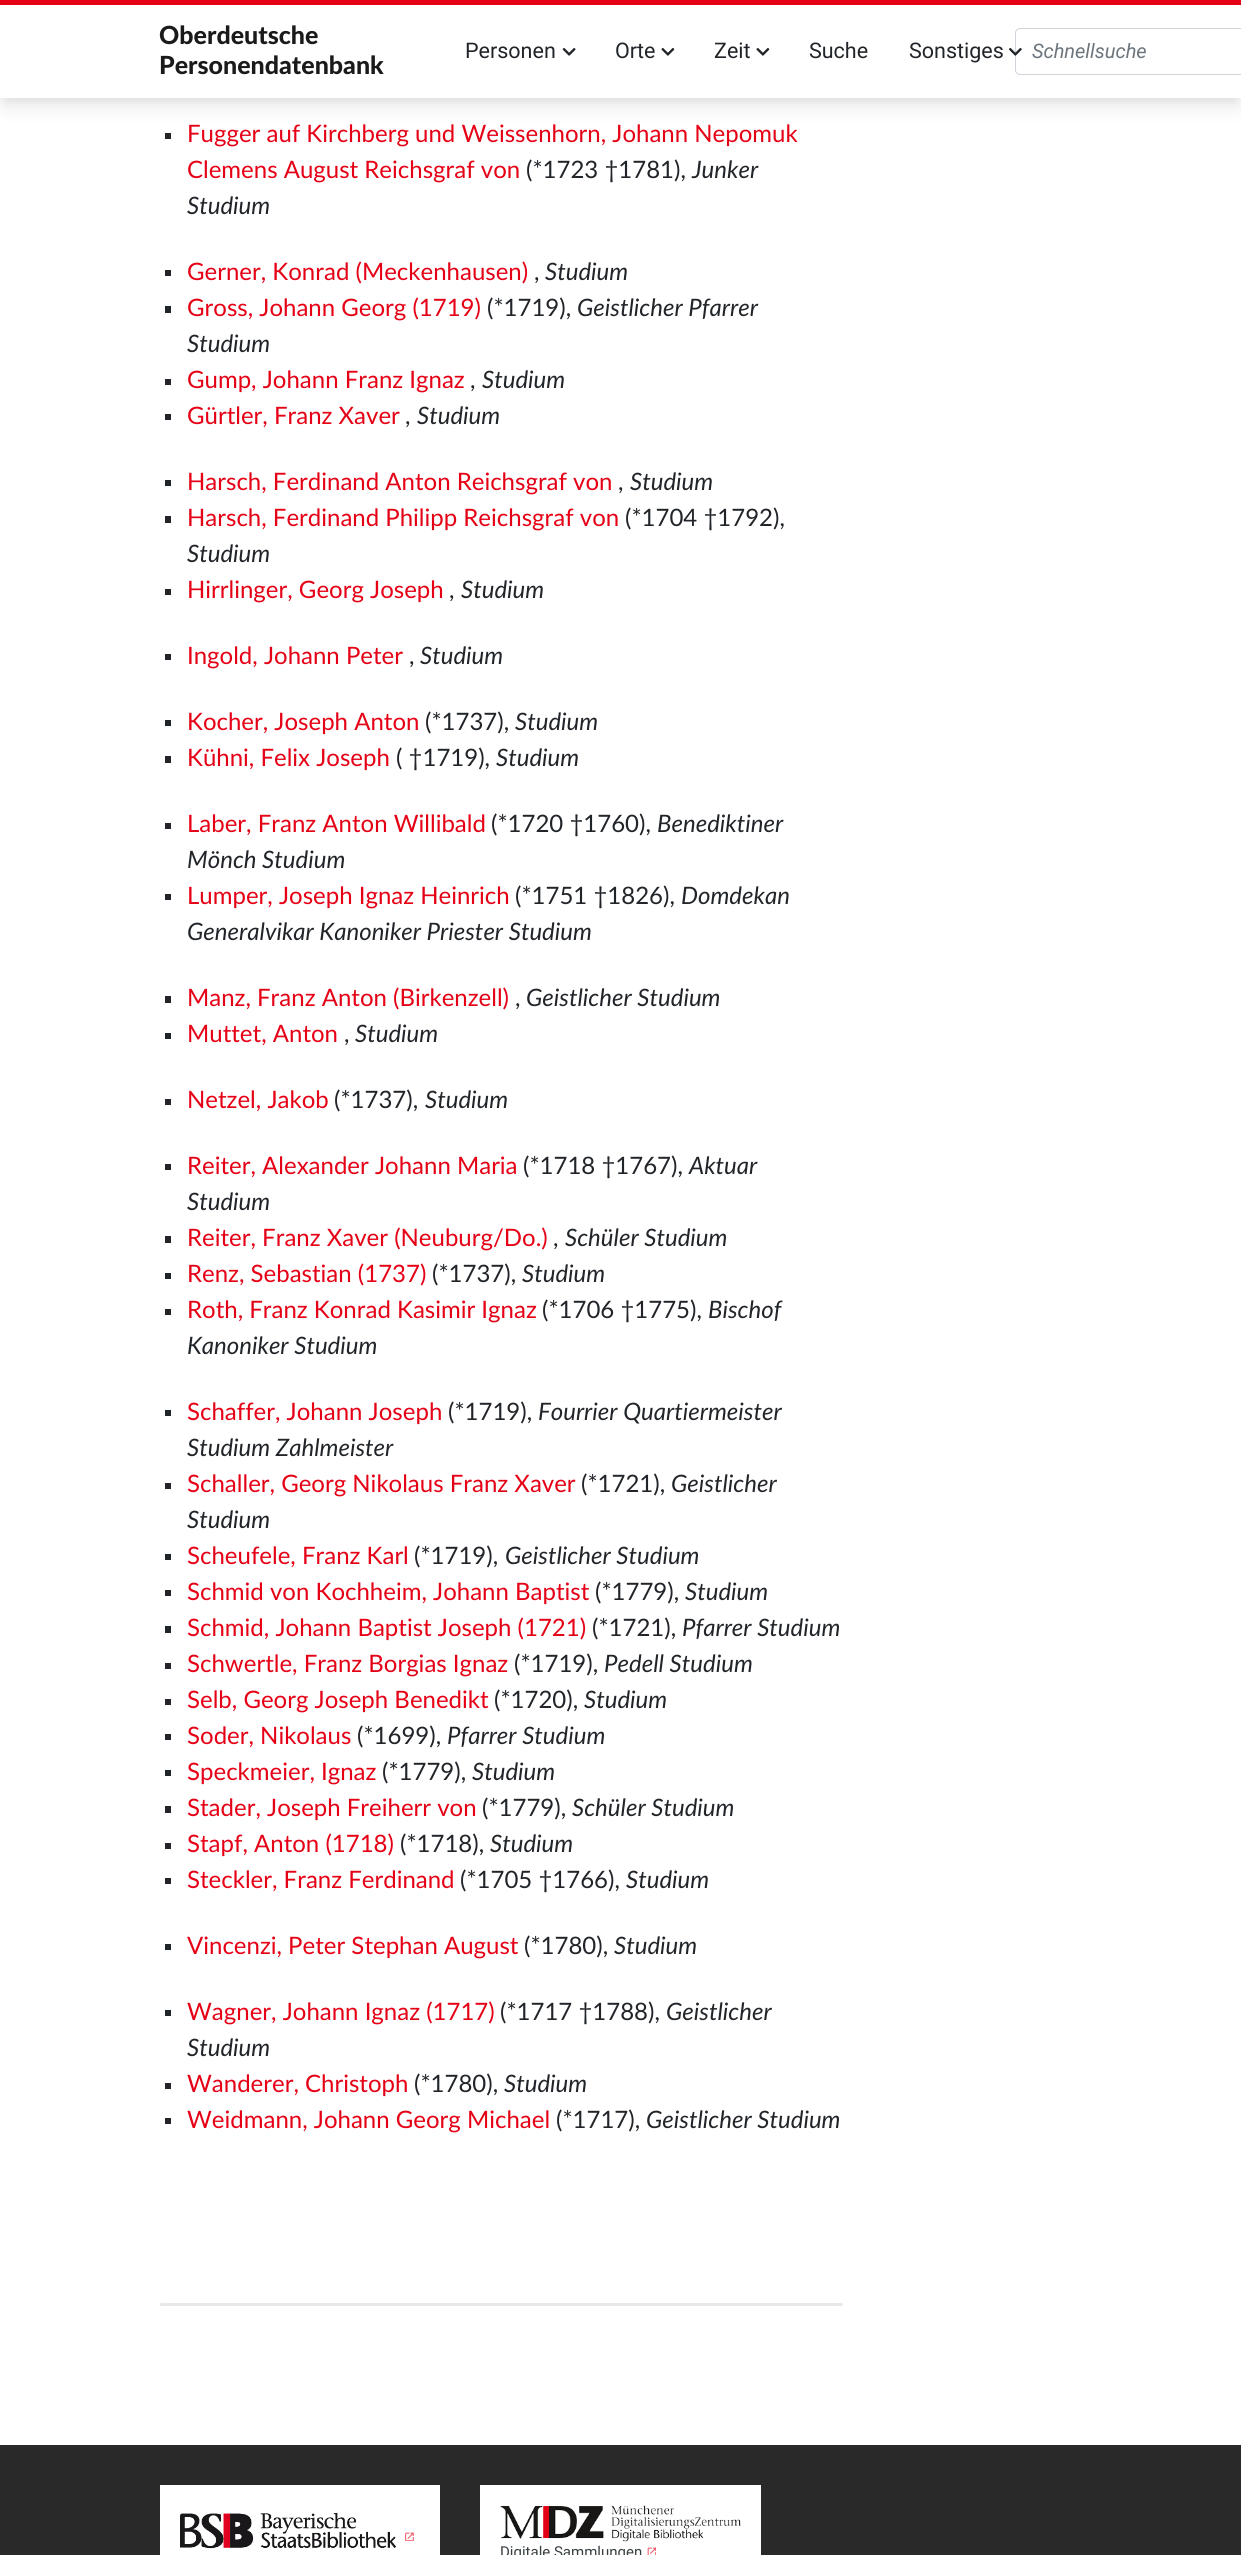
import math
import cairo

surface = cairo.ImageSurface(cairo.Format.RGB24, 1241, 2555)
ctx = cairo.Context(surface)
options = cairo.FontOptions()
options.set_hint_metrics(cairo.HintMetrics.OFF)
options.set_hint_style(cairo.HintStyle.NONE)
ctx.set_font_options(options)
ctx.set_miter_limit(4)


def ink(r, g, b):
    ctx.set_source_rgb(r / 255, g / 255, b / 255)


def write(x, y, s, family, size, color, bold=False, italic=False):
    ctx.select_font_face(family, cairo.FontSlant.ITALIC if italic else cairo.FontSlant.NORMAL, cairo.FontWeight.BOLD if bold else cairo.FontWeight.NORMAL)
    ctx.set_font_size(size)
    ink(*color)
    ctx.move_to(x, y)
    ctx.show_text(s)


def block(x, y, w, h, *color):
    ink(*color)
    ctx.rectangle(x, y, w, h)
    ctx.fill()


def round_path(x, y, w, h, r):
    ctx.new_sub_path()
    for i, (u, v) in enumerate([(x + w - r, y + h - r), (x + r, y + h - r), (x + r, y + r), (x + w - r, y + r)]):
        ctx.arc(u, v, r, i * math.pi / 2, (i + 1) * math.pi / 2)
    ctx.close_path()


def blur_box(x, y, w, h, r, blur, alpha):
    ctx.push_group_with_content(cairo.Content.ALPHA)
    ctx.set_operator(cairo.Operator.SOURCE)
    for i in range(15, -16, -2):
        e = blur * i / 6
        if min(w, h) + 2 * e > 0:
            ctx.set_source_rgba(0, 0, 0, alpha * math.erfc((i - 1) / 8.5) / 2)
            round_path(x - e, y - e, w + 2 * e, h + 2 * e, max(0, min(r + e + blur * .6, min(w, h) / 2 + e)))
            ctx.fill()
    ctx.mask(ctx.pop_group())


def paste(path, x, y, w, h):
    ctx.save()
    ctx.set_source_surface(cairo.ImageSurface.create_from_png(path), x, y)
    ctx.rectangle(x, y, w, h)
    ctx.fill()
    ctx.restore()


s1 = dict(family="Lato Black", size=25, color=(26, 26, 26))
s2 = dict(family="Roboto", size=21.5, color=(33, 37, 41))
s3 = dict(family="Roboto", size=20, color=(108, 117, 125), italic=True)
s4 = dict(family="Lato", size=24, color=(229, 0, 21))
s5 = dict(family="Lato", size=24, color=(33, 37, 41))
s6 = dict(family="Lato", size=24, color=(33, 37, 41), italic=True)
s7 = dict(family="Roboto", size=15, color=(56, 62, 65))

ink(255, 255, 255)
ctx.paint()
ink(0, 0, 0)
blur_box(3, 8, 1236, 92, 0, 4, 0.05)
block(165, 133, 6, 6, 33, 37, 41)
ink(0, 0, 0)
blur_box(4, 16, 1234, 90, 0, 9.5, 0.1)
block(0, 5, 1241, 93, 255, 255, 255)
block(0, 0, 1241, 5, 229, 0, 21)
write(159, 44, "Oberdeutsche", **s1)
write(159, 74, "Personendatenbank", **s1)
write(465, 58, "Personen", **s2)
paste("pic1.png", 562, 48, 14, 8)
write(615, 58, "Orte", **s2)
paste("pic2.png", 661, 48, 14, 8)
write(714, 58, "Zeit", **s2)
paste("pic2.png", 756, 48, 14, 8)
write(809, 58, "Suche", **s2)
write(909, 58, "Sonstiges", **s2)
round_path(1015.5, 28.5, 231, 46, 4.5)
ink(206, 212, 218)
ctx.set_line_width(1)
ctx.stroke()
paste("pic3.png", 1009, 48, 13, 8)
write(1032, 58, "Schnellsuche", **s3)
write(187, 142, "Fugger auf Kirchberg und Weissenhorn, Johann Nepomuk", **s4)
write(187, 178, "Clemens August Reichsgraf von", **s4)
write(526, 178, "(*1723 †1781),", **s5)
write(692, 178, "Junker", **s6)
write(187, 214, "Studium", **s6)
block(165, 270, 6, 6, 33, 37, 41)
write(187, 280, "Gerner, Konrad (Meckenhausen)", **s4)
write(534, 280, ",", **s5)
write(545, 280, "Studium", **s6)
block(165, 306, 6, 7, 33, 37, 41)
write(187, 316, "Gross, Johann Georg (1719)", **s4)
write(487, 316, "(*1719),", **s5)
write(577, 316, "Geistlicher Pfarrer", **s6)
write(187, 352, "Studium", **s6)
block(165, 379, 6, 6, 33, 37, 41)
write(187, 388, "Gump, Johann Franz Ignaz", **s4)
write(482, 388, "Studium", **s6)
write(470, 388, ",", **s5)
block(165, 414, 6, 6, 33, 37, 41)
write(187, 424, "Gürtler, Franz Xaver", **s4)
write(417, 424, "Studium", **s6)
write(405, 424, ",", **s5)
block(165, 480, 6, 6, 33, 37, 41)
write(187, 490, "Harsch, Ferdinand Anton Reichsgraf von", **s4)
write(618, 490, ",", **s5)
write(630, 490, "Studium", **s6)
block(165, 516, 6, 7, 33, 37, 41)
write(187, 526, "Harsch, Ferdinand Philipp Reichsgraf von", **s4)
write(625, 526, "(*1704 †1792),", **s5)
write(187, 562, "Studium", **s6)
block(165, 589, 6, 6, 33, 37, 41)
write(187, 598, "Hirrlinger, Georg Joseph", **s4)
write(461, 598, "Studium", **s6)
write(449, 598, ",", **s5)
block(165, 654, 6, 6, 33, 37, 41)
write(187, 664, "Ingold, Johann Peter", **s4)
write(409, 664, ",", **s5)
write(420, 664, "Studium", **s6)
block(165, 720, 6, 6, 33, 37, 41)
write(187, 730, "Kocher, Joseph Anton", **s4)
write(425, 730, "(*1737),", **s5)
write(515, 730, "Studium", **s6)
block(165, 756, 6, 7, 33, 37, 41)
write(187, 766, "Kühni, Felix Joseph", **s4)
write(396, 766, "( †1719),", **s5)
write(496, 766, "Studium", **s6)
block(165, 823, 6, 6, 33, 37, 41)
write(187, 832, "Laber, Franz Anton Willibald", **s4)
write(491, 832, "(*1720 †1760),", **s5)
write(657, 832, "Benediktiner", **s6)
write(187, 868, "Mönch Studium", **s6)
block(165, 894, 6, 6, 33, 37, 41)
write(187, 904, "Lumper, Joseph Ignaz Heinrich", **s4)
write(515, 904, "(*1751 †1826),", **s5)
write(681, 904, "Domdekan", **s6)
write(187, 940, "Generalvikar Kanoniker Priester Studium", **s6)
block(165, 996, 6, 7, 33, 37, 41)
write(187, 1006, "Manz, Franz Anton (Birkenzell)", **s4)
write(515, 1006, ",", **s5)
write(526, 1006, "Geistlicher Studium", **s6)
block(165, 1033, 6, 6, 33, 37, 41)
write(187, 1042, "Muttet, Anton", **s4)
write(355, 1042, "Studium", **s6)
write(344, 1042, ",", **s5)
block(165, 1099, 6, 6, 33, 37, 41)
write(187, 1108, "Netzel, Jakob", **s4)
write(334, 1108, "(*1737),", **s5)
write(425, 1108, "Studium", **s6)
block(165, 1164, 6, 6, 33, 37, 41)
write(187, 1174, "Reiter, Alexander Johann Maria", **s4)
write(523, 1174, "(*1718 †1767),", **s5)
write(689, 1174, "Aktuar", **s6)
write(187, 1210, "Studium", **s6)
block(165, 1236, 6, 7, 33, 37, 41)
write(187, 1246, "Reiter, Franz Xaver (Neuburg/Do.)", **s4)
write(565, 1246, "Schüler Studium", **s6)
write(553, 1246, ",", **s5)
block(165, 1273, 6, 6, 33, 37, 41)
write(187, 1282, "Renz, Sebastian (1737)", **s4)
write(432, 1282, "(*1737),", **s5)
write(522, 1282, "Studium", **s6)
block(165, 1309, 6, 6, 33, 37, 41)
write(187, 1318, "Roth, Franz Konrad Kasimir Ignaz", **s4)
write(542, 1318, "(*1706 †1775),", **s5)
write(708, 1318, "Bischof", **s6)
write(187, 1354, "Kanoniker Studium", **s6)
block(165, 1410, 6, 6, 33, 37, 41)
write(187, 1420, "Schaffer, Johann Joseph", **s4)
write(448, 1420, "(*1719),", **s5)
write(538, 1420, "Fourrier Quartiermeister", **s6)
write(187, 1456, "Studium Zahlmeister", **s6)
block(165, 1483, 6, 6, 33, 37, 41)
write(187, 1492, "Schaller, Georg Nikolaus Franz Xaver", **s4)
write(581, 1492, "(*1721),", **s5)
write(671, 1492, "Geistlicher", **s6)
write(187, 1528, "Studium", **s6)
block(165, 1554, 6, 6, 33, 37, 41)
write(187, 1564, "Scheufele, Franz Karl", **s4)
write(414, 1564, "(*1719),", **s5)
write(505, 1564, "Geistlicher Studium", **s6)
block(165, 1590, 6, 6, 33, 37, 41)
write(187, 1600, "Schmid von Kochheim, Johann Baptist", **s4)
write(595, 1600, "(*1779),", **s5)
write(685, 1600, "Studium", **s6)
block(165, 1626, 6, 7, 33, 37, 41)
write(187, 1636, "Schmid, Johann Baptist Joseph (1721)", **s4)
write(592, 1636, "(*1721),", **s5)
write(682, 1636, "Pfarrer Studium", **s6)
block(165, 1663, 6, 6, 33, 37, 41)
write(187, 1672, "Schwertle, Franz Borgias Ignaz", **s4)
write(514, 1672, "(*1719),", **s5)
write(604, 1672, "Pedell Studium", **s6)
block(165, 1699, 6, 6, 33, 37, 41)
write(187, 1708, "Selb, Georg Joseph Benedikt", **s4)
write(494, 1708, "(*1720),", **s5)
write(584, 1708, "Studium", **s6)
block(165, 1734, 6, 6, 33, 37, 41)
write(187, 1744, "Soder, Nikolaus", **s4)
write(357, 1744, "(*1699),", **s5)
write(447, 1744, "Pfarrer Studium", **s6)
block(165, 1770, 6, 6, 33, 37, 41)
write(187, 1780, "Speckmeier, Ignaz", **s4)
write(382, 1780, "(*1779),", **s5)
write(472, 1780, "Studium", **s6)
block(165, 1806, 6, 7, 33, 37, 41)
write(187, 1816, "Stader, Joseph Freiherr von", **s4)
write(482, 1816, "(*1779),", **s5)
write(572, 1816, "Schüler Studium", **s6)
block(165, 1843, 6, 6, 33, 37, 41)
write(187, 1852, "Stapf, Anton (1718)", **s4)
write(400, 1852, "(*1718),", **s5)
write(490, 1852, "Studium", **s6)
block(165, 1878, 6, 6, 33, 37, 41)
write(187, 1888, "Steckler, Franz Ferdinand", **s4)
write(460, 1888, "(*1705 †1766),", **s5)
write(626, 1888, "Studium", **s6)
block(165, 1944, 6, 6, 33, 37, 41)
write(187, 1954, "Vincenzi, Peter Stephan August", **s4)
write(524, 1954, "(*1780),", **s5)
write(614, 1954, "Studium", **s6)
block(165, 2010, 6, 6, 33, 37, 41)
write(187, 2020, "Wagner, Johann Ignaz (1717)", **s4)
write(500, 2020, "(*1717 †1788),", **s5)
write(666, 2020, "Geistlicher", **s6)
write(187, 2056, "Studium", **s6)
block(165, 2083, 6, 6, 33, 37, 41)
write(187, 2092, "Wanderer, Christoph", **s4)
write(414, 2092, "(*1780),", **s5)
write(504, 2092, "Studium", **s6)
block(165, 2118, 6, 6, 33, 37, 41)
write(187, 2128, "Weidmann, Johann Georg Michael", **s4)
write(556, 2128, "(*1717),", **s5)
write(646, 2128, "Geistlicher Studium", **s6)
ink(232, 232, 232)
round_path(160, 2303, 683, 3, 1.5)
ctx.fill()
block(0, 2445, 1241, 110, 41, 41, 41)
block(160, 2485, 280, 70, 255, 255, 255)
paste("pic4.png", 180, 2512, 217, 37)
paste("pic5.png", 405, 2532, 9, 9)
block(480, 2485, 281, 70, 255, 255, 255)
paste("pic6.png", 500, 2505, 241, 37)
write(500, 2557, "Digitale Sammlungen", **s7)
paste("pic7.png", 647, 2547, 9, 8)
surface.write_to_png("screenshot.png")
